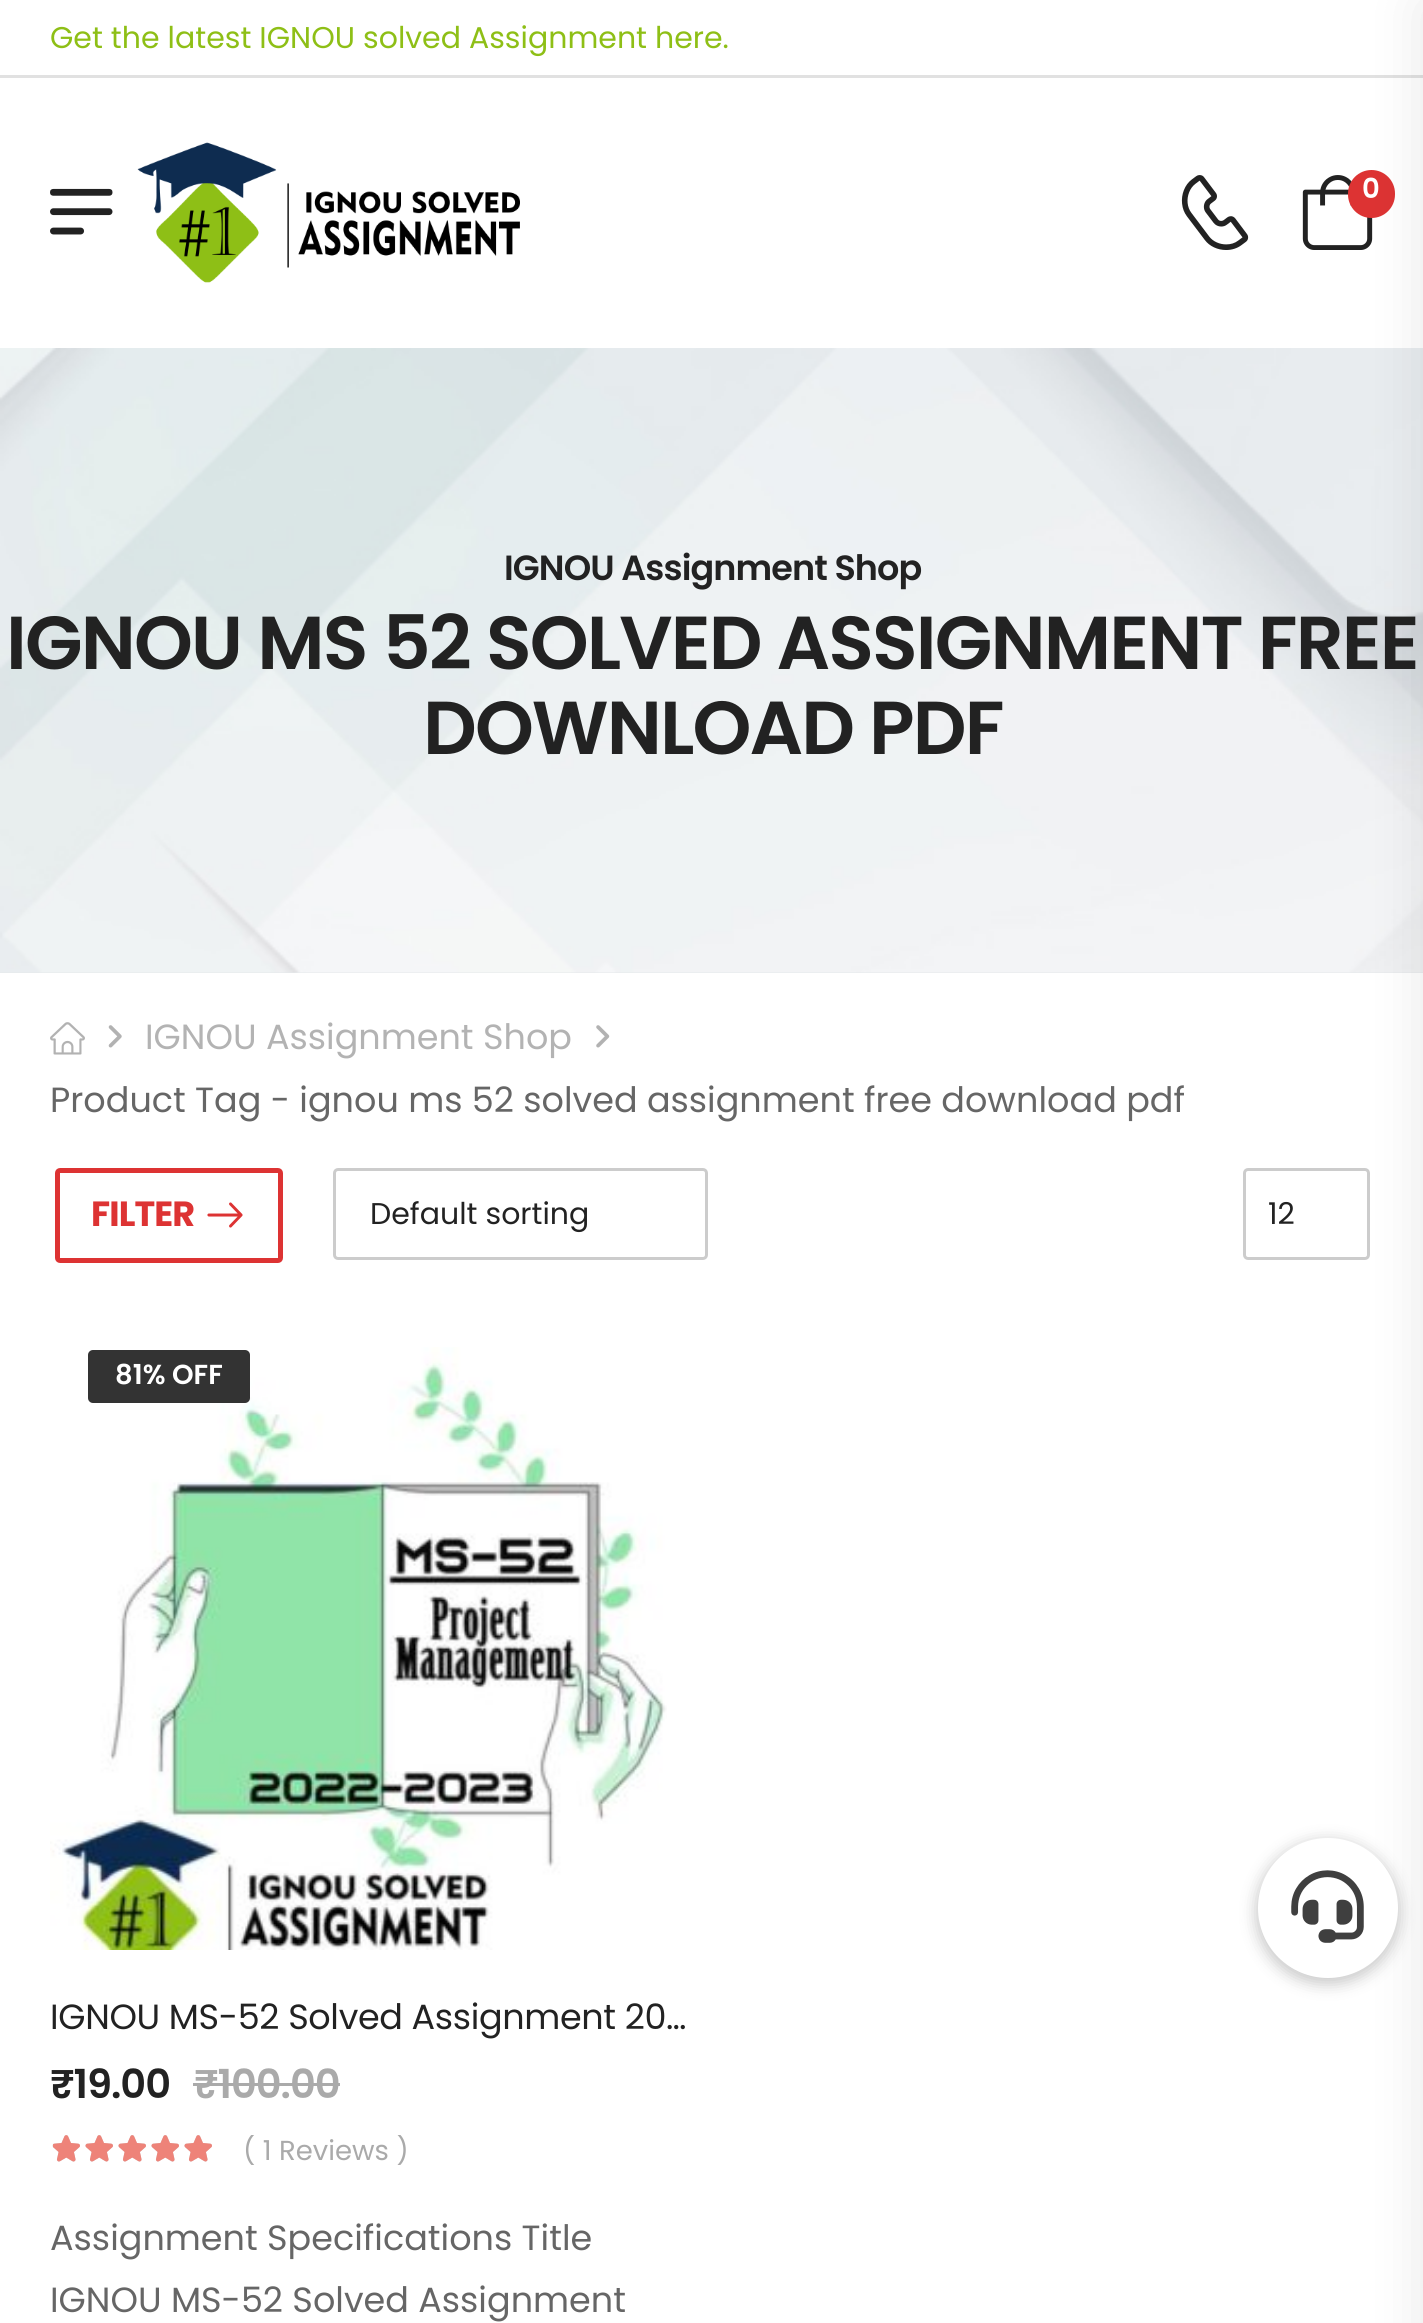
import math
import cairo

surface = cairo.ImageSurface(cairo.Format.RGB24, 1423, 2323)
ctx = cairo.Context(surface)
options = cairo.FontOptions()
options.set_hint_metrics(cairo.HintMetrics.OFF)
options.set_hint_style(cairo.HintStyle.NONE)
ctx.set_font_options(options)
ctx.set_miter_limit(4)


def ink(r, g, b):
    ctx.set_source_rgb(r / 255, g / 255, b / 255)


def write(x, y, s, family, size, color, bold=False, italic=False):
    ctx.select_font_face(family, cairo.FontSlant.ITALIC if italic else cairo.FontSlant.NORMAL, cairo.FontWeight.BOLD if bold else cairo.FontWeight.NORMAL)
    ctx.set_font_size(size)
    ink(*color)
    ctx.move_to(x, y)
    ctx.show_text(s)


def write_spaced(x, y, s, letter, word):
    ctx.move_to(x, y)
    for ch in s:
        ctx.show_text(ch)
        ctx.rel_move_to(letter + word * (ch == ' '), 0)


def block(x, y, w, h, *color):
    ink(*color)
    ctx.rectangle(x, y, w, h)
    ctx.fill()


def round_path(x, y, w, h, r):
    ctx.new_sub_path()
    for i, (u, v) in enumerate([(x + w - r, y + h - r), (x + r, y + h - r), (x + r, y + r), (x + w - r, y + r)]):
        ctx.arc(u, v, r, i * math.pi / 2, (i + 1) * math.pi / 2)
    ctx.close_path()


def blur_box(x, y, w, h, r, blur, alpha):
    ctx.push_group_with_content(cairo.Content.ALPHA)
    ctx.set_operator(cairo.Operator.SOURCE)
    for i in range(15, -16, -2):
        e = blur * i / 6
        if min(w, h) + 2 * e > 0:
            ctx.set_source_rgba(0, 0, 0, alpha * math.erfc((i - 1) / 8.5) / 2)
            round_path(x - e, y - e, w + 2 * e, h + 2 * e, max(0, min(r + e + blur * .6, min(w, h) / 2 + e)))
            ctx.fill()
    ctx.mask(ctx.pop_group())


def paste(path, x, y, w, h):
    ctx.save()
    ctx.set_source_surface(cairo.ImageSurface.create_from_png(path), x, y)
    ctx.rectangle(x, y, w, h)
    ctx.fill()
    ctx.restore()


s1 = dict(family="Poppins", size=30, color=(142, 191, 22))
s2 = dict(family="Poppins", size=35, color=(179, 179, 179))
s3 = dict(family="Poppins", size=35, color=(102, 102, 102))
s4 = dict(family="Poppins", size=30, color=(34, 34, 34))
s5 = dict(family="Poppins SemiBold", size=27.5, color=(255, 255, 255))
s6 = dict(family="Poppins", size=27.5, color=(170, 170, 170))

ink(255, 255, 255)
ctx.paint()
block(0, 75, 1423, 3, 225, 225, 225)
write(50, 48, "Get the latest IGNOU solved Assignment here.", **s1)
paste("pic1.png", 50, 188, 63, 47)
paste("pic2.png", 137, 142, 383, 141)
paste("pic3.png", 1181, 175, 68, 75)
paste("pic4.png", 1302, 175, 71, 75)
ink(221, 51, 51)
round_path(1348, 170, 47, 48, 23.5)
ctx.fill()
block(0, 972, 1423, 1, 228, 232, 235)
paste("pic5.png", 0, 348, 1423, 625)
round_path(1244.5, 1169.5, 124, 89, 3.5)
ink(204, 204, 204)
ctx.set_line_width(3)
ctx.stroke()
ink(0, 0, 0)
blur_box(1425, 5, 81, 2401, 0, 27.5, 0.1)
ctx.select_font_face("Poppins SemiBold")
ctx.set_font_size(27.5)
ink(255, 255, 255)
write_spaced(1362, 198, "0", -1, 0)
ctx.set_font_size(35)
ink(34, 34, 34)
write_spaced(504, 580, "IGNOU Assignment Shop", -0.9, 0)
ctx.set_font_size(75)
write_spaced(6, 669, "IGNOU MS 52 SOLVED ASSIGNMENT FREE", -1.9, 0)
write_spaced(423, 754, "DOWNLOAD PDF", -1.9, 0)
paste("pic6.png", 50, 1022, 35, 33)
paste("pic7.png", 108, 1025, 14, 23)
write(145, 1049, "IGNOU Assignment Shop", **s2)
paste("pic8.png", 596, 1025, 14, 23)
write(50, 1112, "Product Tag - ignou ms 52 solved assignment free download pdf", **s3)
round_path(57.5, 1170.5, 223, 90, 2.5)
ink(221, 51, 51)
ctx.set_line_width(5)
ctx.stroke()
ctx.select_font_face("Poppins", cairo.FontSlant.NORMAL, cairo.FontWeight.BOLD)
write_spaced(91, 1226, "FILTER", -0.9, 0)
paste("pic9.png", 207, 1202, 36, 26)
round_path(334.5, 1169.5, 372, 89, 3.5)
ink(204, 204, 204)
ctx.set_line_width(3)
ctx.stroke()
write(370, 1224, "Default sorting", **s4)
write(1268, 1224, "12", **s4)
paste("pic10.png", 50, 1347, 617, 603)
ink(51, 51, 51)
round_path(88, 1350, 162, 53, 5)
ctx.fill()
write(115, 1384, "81% OFF", **s5)
ctx.select_font_face("Poppins")
ctx.set_font_size(35)
ink(34, 34, 34)
write_spaced(50, 2029, "IGNOU MS-52 Solved Assignment 20…", -0.35, 0)
ctx.select_font_face("Poppins SemiBold")
ctx.set_font_size(40)
write_spaced(50, 2098, "₹19.00", -1, 0)
ink(170, 170, 170)
write_spaced(194, 2098, "₹100.00", -1, 0)
block(193, 2083, 147, 3, 170, 170, 170)
paste("pic11.png", 52, 2135, 160, 27)
paste("pic12.png", 53, 2135, 159, 27)
ctx.save()
ctx.rectangle(243, 2135, 165, 30)
ctx.clip()
write(243, 2160, "( 1 Reviews )", **s6)
ctx.restore()
write(50, 2250, "Assignment Specifications Title", **s3)
write(50, 2312, "IGNOU MS-52 Solved Assignment", **s3)
ink(0, 0, 0)
blur_box(1255, 1840, 145, 145, 72.5, 7.5, 0.2)
ink(255, 255, 255)
ctx.arc(1328, 1908, 70, 0, 2 * math.pi)
ctx.fill()
paste("pic13.png", 1291, 1870, 73, 73)
surface.write_to_png("screenshot.png")
